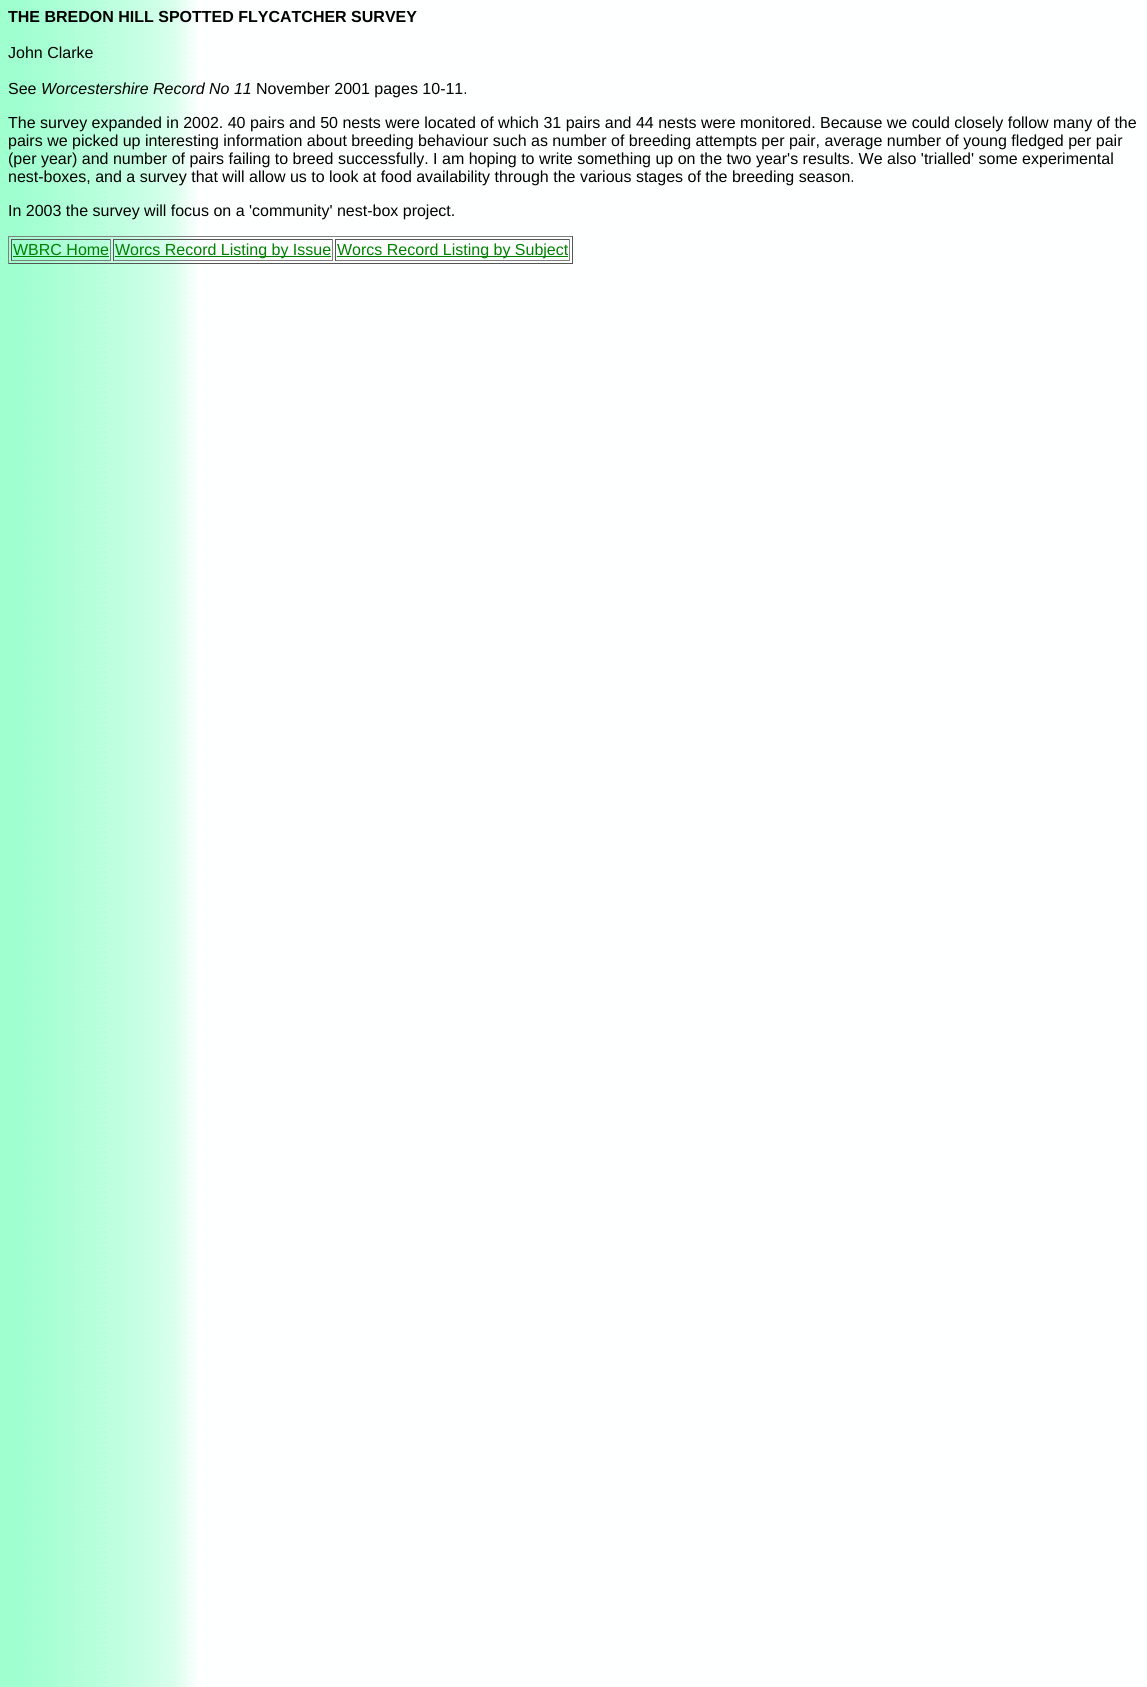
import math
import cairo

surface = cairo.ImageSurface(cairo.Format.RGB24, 1147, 1687)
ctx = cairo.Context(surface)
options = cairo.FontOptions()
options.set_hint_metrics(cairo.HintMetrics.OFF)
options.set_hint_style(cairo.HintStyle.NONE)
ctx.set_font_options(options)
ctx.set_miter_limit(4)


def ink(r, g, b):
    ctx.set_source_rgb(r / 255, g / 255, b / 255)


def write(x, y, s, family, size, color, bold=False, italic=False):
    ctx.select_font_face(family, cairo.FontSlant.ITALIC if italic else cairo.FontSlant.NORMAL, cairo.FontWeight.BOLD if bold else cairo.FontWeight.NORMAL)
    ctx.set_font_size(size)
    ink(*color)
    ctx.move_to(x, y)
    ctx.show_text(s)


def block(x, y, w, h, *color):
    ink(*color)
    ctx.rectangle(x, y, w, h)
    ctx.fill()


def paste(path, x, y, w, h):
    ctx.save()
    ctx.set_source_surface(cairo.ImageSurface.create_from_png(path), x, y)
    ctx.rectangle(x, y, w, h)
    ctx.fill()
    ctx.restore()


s1 = dict(family="Liberation Sans", size=16, color=(0, 0, 0), bold=True)
s2 = dict(family="Liberation Sans", size=16, color=(0, 0, 0))
s3 = dict(family="Liberation Sans", size=16, color=(0, 0, 0), italic=True)
s4 = dict(family="Liberation Sans", size=16, color=(0, 128, 0))

ink(255, 255, 255)
ctx.paint()
paste("pic1.png", 0, 0, 1147, 1687)
write(8, 22, "THE BREDON HILL SPOTTED FLYCATCHER SURVEY", **s1)
write(8, 58, "John Clarke", **s2)
write(8, 94, "See", **s2)
write(41, 94, "Worcestershire Record No 11", **s3)
write(256, 94, "November 2001 pages 10-11.", **s2)
write(8, 128, "The survey expanded in 2002. 40 pairs and 50 nests were located of which 31 pairs and 44 nests were monitored. Because we could closely follow many of the", **s2)
write(8, 146, "pairs we picked up interesting information about breeding behaviour such as number of breeding attempts per pair, average number of young fledged per pair", **s2)
write(8, 164, "(per year) and number of pairs failing to breed successfully. I am hoping to write something up on the two year's results. We also 'trialled' some experimental", **s2)
write(8, 182, "nest-boxes, and a survey that will allow us to look at food availability through the various stages of the breeding season.", **s2)
write(8, 216, "In 2003 the survey will focus on a 'community' nest-box project.", **s2)
block(8, 236, 565, 1, 128, 128, 128)
block(572, 236, 1, 28, 85, 85, 85)
block(8, 263, 565, 1, 85, 85, 85)
block(8, 236, 1, 28, 128, 128, 128)
block(11, 239, 100, 1, 85, 85, 85)
block(110, 239, 1, 22, 128, 128, 128)
block(11, 260, 100, 1, 128, 128, 128)
block(11, 239, 1, 22, 85, 85, 85)
write(13, 255, "WBRC Home", **s4)
block(13, 256, 96, 1, 0, 128, 0)
block(113, 239, 220, 1, 85, 85, 85)
block(332, 239, 1, 22, 128, 128, 128)
block(113, 260, 220, 1, 128, 128, 128)
block(113, 239, 1, 22, 85, 85, 85)
block(115, 256, 216, 1, 0, 128, 0)
write(115, 255, "Worcs Record Listing by Issue", **s4)
block(335, 239, 235, 1, 85, 85, 85)
block(569, 239, 1, 22, 128, 128, 128)
block(335, 260, 235, 1, 128, 128, 128)
block(335, 239, 1, 22, 85, 85, 85)
block(337, 256, 231, 1, 0, 128, 0)
write(337, 255, "Worcs Record Listing by Subject", **s4)
surface.write_to_png("screenshot.png")
